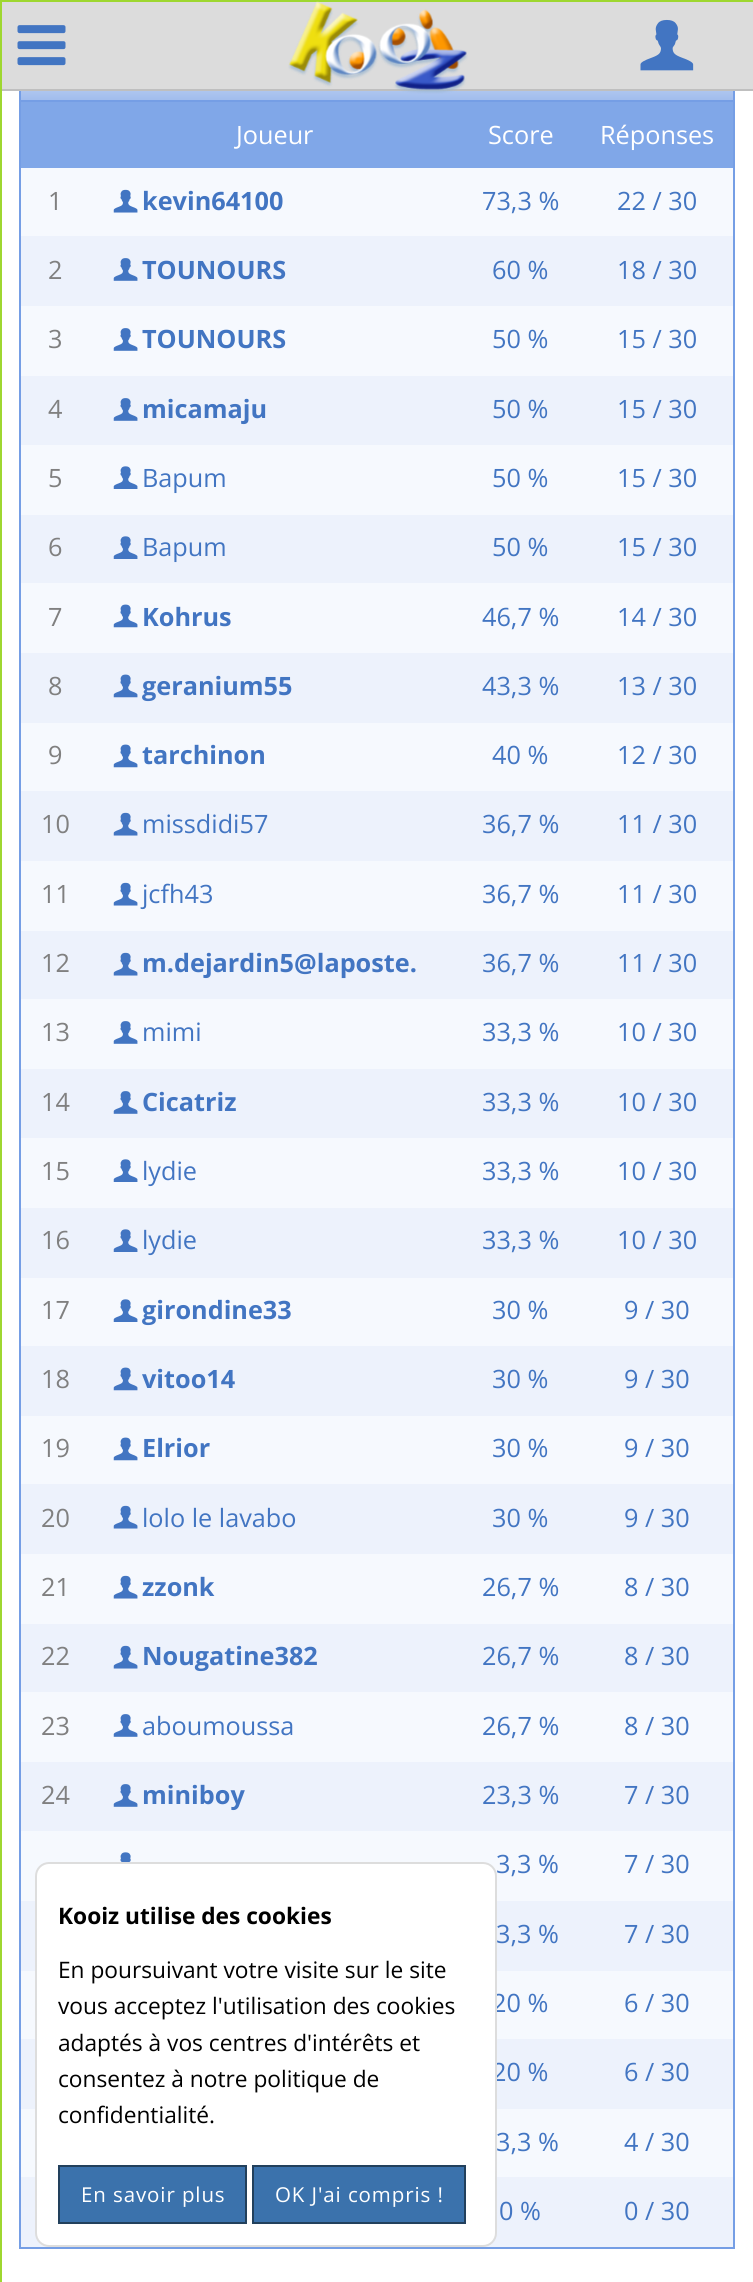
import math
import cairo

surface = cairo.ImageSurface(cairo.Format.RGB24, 753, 2282)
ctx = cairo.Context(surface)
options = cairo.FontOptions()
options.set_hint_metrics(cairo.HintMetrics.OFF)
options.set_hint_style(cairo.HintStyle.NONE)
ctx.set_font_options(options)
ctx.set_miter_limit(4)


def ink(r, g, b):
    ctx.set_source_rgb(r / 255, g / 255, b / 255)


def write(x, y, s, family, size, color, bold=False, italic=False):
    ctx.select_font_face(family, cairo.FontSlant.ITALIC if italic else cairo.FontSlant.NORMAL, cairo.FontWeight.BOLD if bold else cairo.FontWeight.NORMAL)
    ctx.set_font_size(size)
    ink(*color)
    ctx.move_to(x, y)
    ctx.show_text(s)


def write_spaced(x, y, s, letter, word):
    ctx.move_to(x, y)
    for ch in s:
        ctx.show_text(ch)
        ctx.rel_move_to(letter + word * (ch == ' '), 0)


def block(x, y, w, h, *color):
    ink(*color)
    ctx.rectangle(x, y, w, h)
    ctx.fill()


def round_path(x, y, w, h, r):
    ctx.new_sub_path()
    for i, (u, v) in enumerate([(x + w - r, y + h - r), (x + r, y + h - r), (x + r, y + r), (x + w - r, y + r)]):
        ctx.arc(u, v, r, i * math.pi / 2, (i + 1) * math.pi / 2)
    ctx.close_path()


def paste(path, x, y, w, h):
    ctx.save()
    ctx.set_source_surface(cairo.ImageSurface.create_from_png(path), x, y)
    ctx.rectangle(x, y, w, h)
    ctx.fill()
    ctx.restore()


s1 = dict(family="Open Sans", size=25.25, color=(255, 255, 255))
s2 = dict(family="Open Sans", size=25.25, color=(128, 128, 128))
s3 = dict(family="Open Sans", size=25.25, color=(66, 117, 194), bold=True)
s4 = dict(family="Open Sans", size=25.25, color=(66, 117, 194))
s5 = dict(family="Open Sans", size=22.7, color=(0, 0, 0), bold=True)
s6 = dict(family="Open Sans", size=22.7, color=(0, 0, 0))

ink(255, 255, 255)
ctx.paint()
gradient = cairo.LinearGradient(377, 100, 377, 44)
gradient.add_color_stop_rgba(0, 0.631, 0.741, 0.929, 1)
gradient.add_color_stop_rgba(1, 0.941, 0.961, 0.992, 1)
ctx.set_source(gradient)
ctx.rectangle(21, 91, 712, 9)
ctx.fill()
ink(117, 158, 229)
ctx.set_fill_rule(cairo.FillRule.EVEN_ODD)
ctx.new_path()
ctx.move_to(30, 42)
ctx.line_to(724, 42)
ctx.curve_to(730, 42, 735, 47, 735, 52)
ctx.line_to(735, 100)
ctx.line_to(19, 100)
ctx.line_to(19, 52)
ctx.curve_to(19, 47, 24, 42, 30, 42)
ctx.close_path()
ctx.move_to(30, 44)
ctx.line_to(724, 44)
ctx.curve_to(729, 44, 733, 48, 733, 52)
ctx.line_to(733, 100)
ctx.line_to(21, 100)
ctx.line_to(21, 52)
ctx.curve_to(21, 48, 25, 44, 30, 44)
ctx.close_path()
ctx.fill()
block(2, 2, 751, 87, 220, 220, 220)
block(0, 0, 753, 2, 158, 215, 48)
block(0, 89, 753, 2, 191, 191, 191)
block(0, 0, 2, 91, 158, 215, 48)
paste("pic1.png", 288, 1, 180, 93)
paste("pic2.png", 17, 25, 49, 41)
paste("pic3.png", 640, 19, 54, 52)
block(0, 91, 2, 2191, 158, 215, 48)
ctx.rectangle(20, 101, 714, 2147)
ink(117, 158, 229)
ctx.stroke()
block(21, 102, 712, 66, 128, 167, 232)
write(236, 144, "Joueur", **s1)
write(488, 144, "Score", **s1)
write(600, 144, "Réponses", **s1)
block(21, 168, 712, 68, 246, 249, 254)
write(48, 210, "1", **s2)
paste("pic4.png", 113, 189, 25, 24)
write(142, 210, "kevin64100", **s3)
write(482, 210, "73,3 %", **s4)
write(617, 210, "22 / 30", **s4)
block(21, 236, 712, 70, 237, 242, 252)
write(48, 279, "2", **s2)
paste("pic5.png", 113, 258, 25, 23)
write(142, 279, "TOUNOURS", **s3)
write(492, 279, "60 %", **s4)
write(617, 279, "18 / 30", **s4)
block(21, 306, 712, 70, 246, 249, 254)
write(48, 348, "3", **s2)
paste("pic6.png", 113, 328, 25, 23)
write(142, 348, "TOUNOURS", **s3)
write(492, 348, "50 %", **s4)
write(617, 348, "15 / 30", **s4)
block(21, 376, 712, 69, 237, 242, 252)
write(48, 418, "4", **s2)
paste("pic5.png", 113, 398, 25, 23)
write(142, 418, "micamaju", **s3)
write(492, 418, "50 %", **s4)
write(617, 418, "15 / 30", **s4)
block(21, 445, 712, 70, 246, 249, 254)
write(48, 487, "5", **s2)
paste("pic7.png", 113, 466, 25, 23)
write(142, 487, "Bapum", **s4)
write(492, 487, "50 %", **s4)
write(617, 487, "15 / 30", **s4)
block(21, 515, 712, 68, 237, 242, 252)
write(48, 556, "6", **s2)
paste("pic8.png", 113, 536, 25, 23)
write(142, 556, "Bapum", **s4)
write(492, 556, "50 %", **s4)
write(617, 556, "15 / 30", **s4)
block(21, 583, 712, 70, 246, 249, 254)
write(48, 626, "7", **s2)
paste("pic9.png", 113, 604, 25, 24)
write(142, 626, "Kohrus", **s3)
write(482, 626, "46,7 %", **s4)
write(617, 626, "14 / 30", **s4)
block(21, 653, 712, 70, 237, 242, 252)
write(48, 695, "8", **s2)
paste("pic10.png", 113, 674, 25, 24)
write(142, 695, "geranium55", **s3)
write(482, 695, "43,3 %", **s4)
write(617, 695, "13 / 30", **s4)
block(21, 723, 712, 68, 246, 249, 254)
write(48, 764, "9", **s2)
paste("pic9.png", 113, 744, 25, 24)
write(142, 764, "tarchinon", **s3)
write(492, 764, "40 %", **s4)
write(617, 764, "12 / 30", **s4)
block(21, 791, 712, 70, 237, 242, 252)
write(41, 833, "10", **s2)
paste("pic11.png", 113, 812, 25, 24)
write(142, 833, "missdidi57", **s4)
write(482, 833, "36,7 %", **s4)
write(617, 833, "11 / 30", **s4)
block(21, 861, 712, 70, 246, 249, 254)
write(41, 903, "11", **s2)
paste("pic4.png", 113, 882, 25, 24)
write(142, 903, "jcfh43", **s4)
write(482, 903, "36,7 %", **s4)
write(617, 903, "11 / 30", **s4)
block(21, 931, 712, 68, 237, 242, 252)
write(41, 972, "12", **s2)
paste("pic11.png", 113, 952, 25, 24)
write(142, 972, "m.dejardin5@laposte.", **s3)
write(482, 972, "36,7 %", **s4)
write(617, 972, "11 / 30", **s4)
block(21, 999, 712, 70, 246, 249, 254)
write(41, 1041, "13", **s2)
paste("pic6.png", 113, 1021, 25, 23)
write(142, 1041, "mimi", **s4)
write(482, 1041, "33,3 %", **s4)
write(617, 1041, "10 / 30", **s4)
block(21, 1069, 712, 69, 237, 242, 252)
write(41, 1111, "14", **s2)
paste("pic5.png", 113, 1091, 25, 23)
write(142, 1111, "Cicatriz", **s3)
write(482, 1111, "33,3 %", **s4)
write(617, 1111, "10 / 30", **s4)
block(21, 1138, 712, 70, 246, 249, 254)
write(41, 1180, "15", **s2)
paste("pic7.png", 113, 1159, 25, 23)
write(142, 1180, "lydie", **s4)
write(482, 1180, "33,3 %", **s4)
write(617, 1180, "10 / 30", **s4)
block(21, 1208, 712, 70, 237, 242, 252)
write(41, 1249, "16", **s2)
paste("pic8.png", 113, 1229, 25, 23)
write(142, 1249, "lydie", **s4)
write(482, 1249, "33,3 %", **s4)
write(617, 1249, "10 / 30", **s4)
block(21, 1278, 712, 68, 246, 249, 254)
write(41, 1319, "17", **s2)
paste("pic7.png", 113, 1299, 25, 23)
write(142, 1319, "girondine33", **s3)
write(492, 1319, "30 %", **s4)
write(624, 1319, "9 / 30", **s4)
block(21, 1346, 712, 70, 237, 242, 252)
write(41, 1388, "18", **s2)
paste("pic10.png", 113, 1367, 25, 24)
write(142, 1388, "vitoo14", **s3)
write(492, 1388, "30 %", **s4)
write(624, 1388, "9 / 30", **s4)
block(21, 1416, 712, 68, 246, 249, 254)
write(41, 1457, "19", **s2)
paste("pic9.png", 113, 1437, 25, 24)
write(142, 1457, "Elrior", **s3)
write(492, 1457, "30 %", **s4)
write(624, 1457, "9 / 30", **s4)
block(21, 1484, 712, 70, 237, 242, 252)
write(41, 1527, "20", **s2)
paste("pic11.png", 113, 1505, 25, 24)
write(142, 1527, "lolo le lavabo", **s4)
write(492, 1527, "30 %", **s4)
write(624, 1527, "9 / 30", **s4)
block(21, 1554, 712, 70, 246, 249, 254)
write(41, 1596, "21", **s2)
paste("pic4.png", 113, 1575, 25, 24)
write(142, 1596, "zzonk", **s3)
write(482, 1596, "26,7 %", **s4)
write(624, 1596, "8 / 30", **s4)
block(21, 1624, 712, 68, 237, 242, 252)
write(41, 1665, "22", **s2)
paste("pic11.png", 113, 1645, 25, 24)
write(142, 1665, "Nougatine382", **s3)
write(482, 1665, "26,7 %", **s4)
write(624, 1665, "8 / 30", **s4)
block(21, 1692, 712, 70, 246, 249, 254)
write(41, 1735, "23", **s2)
paste("pic6.png", 113, 1714, 25, 23)
write(142, 1735, "aboumoussa", **s4)
write(482, 1735, "26,7 %", **s4)
write(624, 1735, "8 / 30", **s4)
block(21, 1762, 712, 69, 237, 242, 252)
write(41, 1804, "24", **s2)
paste("pic5.png", 113, 1784, 25, 23)
write(142, 1804, "miniboy", **s3)
write(482, 1804, "23,3 %", **s4)
write(624, 1804, "7 / 30", **s4)
block(21, 1831, 712, 70, 246, 249, 254)
paste("pic12.png", 120, 1852, 11, 10)
write(496, 1873, "3,3 %", **s4)
write(624, 1873, "7 / 30", **s4)
block(21, 1901, 712, 70, 237, 242, 252)
write(496, 1943, "3,3 %", **s4)
write(624, 1943, "7 / 30", **s4)
block(21, 1971, 712, 68, 246, 249, 254)
write(492, 2012, "20 %", **s4)
write(624, 2012, "6 / 30", **s4)
block(21, 2039, 712, 70, 237, 242, 252)
write(492, 2081, "20 %", **s4)
write(624, 2081, "6 / 30", **s4)
block(21, 2109, 712, 68, 246, 249, 254)
write(496, 2151, "3,3 %", **s4)
write(624, 2151, "4 / 30", **s4)
block(21, 2177, 712, 70, 237, 242, 252)
write(499, 2220, "0 %", **s4)
write(624, 2220, "0 / 30", **s4)
ink(255, 255, 255)
round_path(36, 1863, 460, 383, 13)
ctx.fill_preserve()
ink(221, 221, 221)
ctx.stroke()
write(58, 1924, "Kooiz utilise des cookies", **s5)
write(58, 1978, "En poursuivant votre visite sur le site", **s6)
write(58, 2014, "vous acceptez l'utilisation des cookies", **s6)
write(58, 2051, "adaptés à vos centres d'intérêts et", **s6)
write(58, 2087, "consentez à notre politique de", **s6)
write(58, 2123, "confidentialité.", **s6)
ink(59, 114, 172)
ctx.rectangle(59, 2166, 187, 57)
ctx.fill_preserve()
ink(34, 64, 92)
ctx.stroke()
ctx.set_font_size(20.5)
ink(255, 255, 255)
write_spaced(81, 2202, "En savoir plus", 0.9, 0)
ink(59, 114, 172)
ctx.rectangle(253, 2166, 212, 57)
ctx.fill_preserve()
ink(34, 64, 92)
ctx.stroke()
ink(255, 255, 255)
write_spaced(275, 2202, "OK J'ai compris !", 0.9, 0)
surface.write_to_png("screenshot.png")
